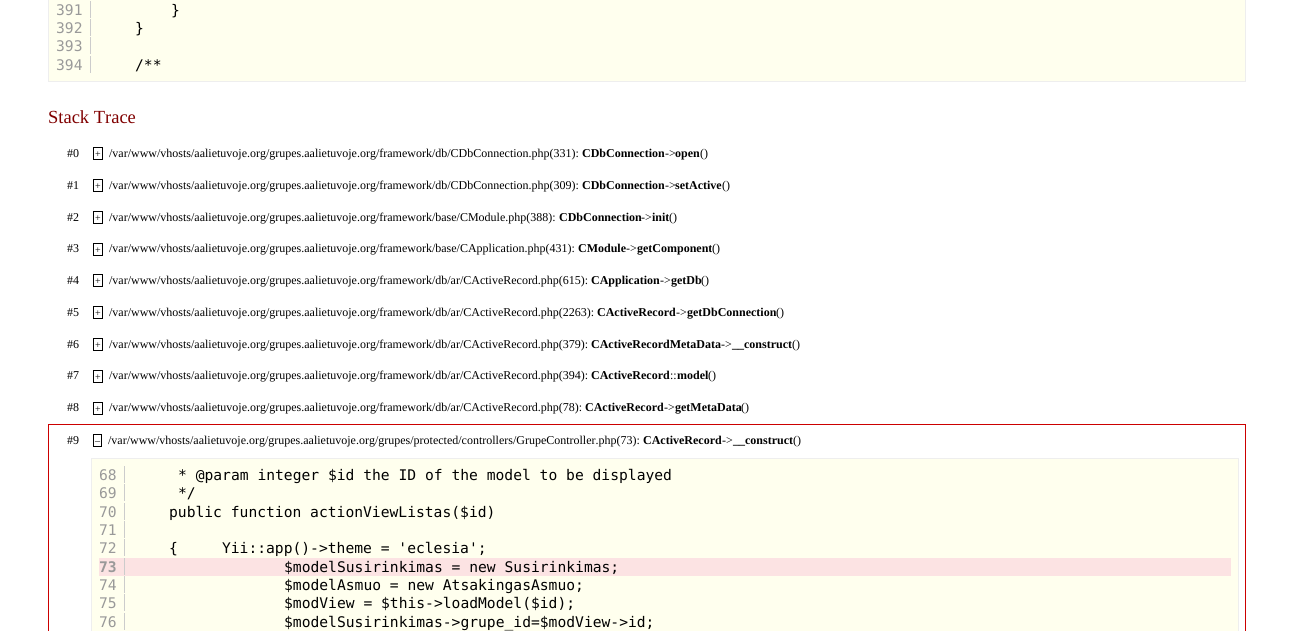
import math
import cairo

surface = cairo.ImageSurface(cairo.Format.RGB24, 1294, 631)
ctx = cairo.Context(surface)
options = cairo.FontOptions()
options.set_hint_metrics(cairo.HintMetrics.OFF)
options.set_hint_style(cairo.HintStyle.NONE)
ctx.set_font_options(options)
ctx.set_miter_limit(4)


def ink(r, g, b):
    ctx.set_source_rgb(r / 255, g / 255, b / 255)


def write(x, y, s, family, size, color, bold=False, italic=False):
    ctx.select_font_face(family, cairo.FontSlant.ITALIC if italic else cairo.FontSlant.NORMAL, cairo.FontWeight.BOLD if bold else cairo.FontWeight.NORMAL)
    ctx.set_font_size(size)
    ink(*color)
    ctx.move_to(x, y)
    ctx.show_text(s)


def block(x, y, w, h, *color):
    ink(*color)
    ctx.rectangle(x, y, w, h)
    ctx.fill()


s1 = dict(family="DejaVu Sans Mono", size=14.65, color=(153, 153, 153))
s2 = dict(family="DejaVu Sans Mono", size=14.65, color=(0, 0, 0))
s3 = dict(family="Liberation Serif", size=18.5, color=(128, 0, 0))
s4 = dict(family="Liberation Serif", size=12, color=(0, 0, 0))
s5 = dict(family="Liberation Serif", size=10, color=(0, 0, 0))
s6 = dict(family="Liberation Serif", size=12, color=(0, 0, 0), bold=True)
s7 = dict(family="DejaVu Sans Mono", size=14.65, color=(153, 153, 153), bold=True)

ink(255, 255, 255)
ctx.paint()
ink(255, 255, 238)
ctx.rectangle(48.5, -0.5, 1197, 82)
ctx.fill_preserve()
ink(238, 238, 238)
ctx.set_line_width(1)
ctx.stroke()
write(56, 15, "391", **s1)
block(90, 1, 1, 17, 204, 204, 204)
write(171, 15, "}", **s2)
write(56, 33, "392", **s1)
block(90, 19, 1, 17, 204, 204, 204)
write(135, 33, "}", **s2)
write(56, 51, "393", **s1)
block(90, 37, 1, 17, 204, 204, 204)
write(56, 70, "394", **s1)
block(90, 56, 1, 17, 204, 204, 204)
write(135, 70, "/**", **s2)
write(48, 123, "Stack Trace", **s3)
write(67, 157, "#0", **s4)
ctx.rectangle(93.5, 147.5, 9, 12)
ctx.stroke()
write(95, 157, "+", **s5)
write(109, 157, "/var/www/vhosts/aalietuvoje.org/grupes.aalietuvoje.org/framework/db/CDbConnection.php(331):", **s4)
write(582, 157, "CDbConnection", **s6)
write(665, 157, "->", **s4)
write(675, 157, "open", **s6)
write(700, 157, "()", **s4)
write(67, 189, "#1", **s4)
ctx.rectangle(93.5, 179.5, 9, 12)
ctx.stroke()
write(95, 189, "+", **s5)
write(109, 189, "/var/www/vhosts/aalietuvoje.org/grupes.aalietuvoje.org/framework/db/CDbConnection.php(309):", **s4)
write(582, 189, "CDbConnection", **s6)
write(665, 189, "->", **s4)
write(675, 189, "setActive", **s6)
write(722, 189, "()", **s4)
write(67, 221, "#2", **s4)
ctx.rectangle(93.5, 211.5, 9, 12)
ctx.stroke()
write(95, 221, "+", **s5)
write(109, 221, "/var/www/vhosts/aalietuvoje.org/grupes.aalietuvoje.org/framework/base/CModule.php(388):", **s4)
write(559, 221, "CDbConnection", **s6)
write(641, 221, "->", **s4)
write(652, 221, "init", **s6)
write(669, 221, "()", **s4)
write(67, 252, "#3", **s4)
ctx.rectangle(93.5, 243.5, 9, 12)
ctx.stroke()
write(95, 253, "+", **s5)
write(109, 252, "/var/www/vhosts/aalietuvoje.org/grupes.aalietuvoje.org/framework/base/CApplication.php(431):", **s4)
write(578, 252, "CModule", **s6)
write(626, 252, "->", **s4)
write(637, 252, "getComponent", **s6)
write(712, 252, "()", **s4)
write(67, 284, "#4", **s4)
ctx.rectangle(93.5, 274.5, 9, 12)
ctx.stroke()
write(95, 284, "+", **s5)
write(109, 284, "/var/www/vhosts/aalietuvoje.org/grupes.aalietuvoje.org/framework/db/ar/CActiveRecord.php(615):", **s4)
write(591, 284, "CApplication", **s6)
write(660, 284, "->", **s4)
write(671, 284, "getDb", **s6)
write(701, 284, "()", **s4)
write(67, 316, "#5", **s4)
ctx.rectangle(93.5, 306.5, 9, 12)
ctx.stroke()
write(95, 316, "+", **s5)
write(109, 316, "/var/www/vhosts/aalietuvoje.org/grupes.aalietuvoje.org/framework/db/ar/CActiveRecord.php(2263):", **s4)
write(597, 316, "CActiveRecord", **s6)
write(676, 316, "->", **s4)
write(687, 316, "getDbConnection", **s6)
write(776, 316, "()", **s4)
write(67, 348, "#6", **s4)
ctx.rectangle(93.5, 338.5, 9, 12)
ctx.stroke()
write(95, 348, "+", **s5)
write(109, 348, "/var/www/vhosts/aalietuvoje.org/grupes.aalietuvoje.org/framework/db/ar/CActiveRecord.php(379):", **s4)
write(591, 348, "CActiveRecordMetaData", **s6)
write(721, 348, "->", **s4)
write(732, 348, "__construct", **s6)
write(792, 348, "()", **s4)
write(67, 379, "#7", **s4)
ctx.rectangle(93.5, 370.5, 9, 12)
ctx.stroke()
write(95, 380, "+", **s5)
write(109, 379, "/var/www/vhosts/aalietuvoje.org/grupes.aalietuvoje.org/framework/db/ar/CActiveRecord.php(394):", **s4)
write(591, 379, "CActiveRecord", **s6)
write(670, 379, "::", **s4)
write(677, 379, "model", **s6)
write(708, 379, "()", **s4)
write(67, 411, "#8", **s4)
ctx.rectangle(93.5, 402.5, 9, 12)
ctx.stroke()
write(95, 412, "+", **s5)
write(109, 411, "/var/www/vhosts/aalietuvoje.org/grupes.aalietuvoje.org/framework/db/ar/CActiveRecord.php(78):", **s4)
write(585, 411, "CActiveRecord", **s6)
write(664, 411, "->", **s4)
write(675, 411, "getMetaData", **s6)
write(741, 411, "()", **s4)
block(48, 424, 1198, 1, 204, 0, 0)
block(1245, 424, 1, 207, 204, 0, 0)
block(48, 424, 1, 207, 204, 0, 0)
write(67, 444, "#9", **s4)
ctx.rectangle(93.5, 434.5, 8, 12)
ctx.stroke()
write(95, 444, "–", **s5)
write(108, 444, "/var/www/vhosts/aalietuvoje.org/grupes.aalietuvoje.org/grupes/protected/controllers/GrupeController.php(73):", **s4)
write(643, 444, "CActiveRecord", **s6)
write(722, 444, "->", **s4)
write(733, 444, "__construct", **s6)
write(793, 444, "()", **s4)
ink(255, 255, 238)
ctx.rectangle(91.5, 458.5, 1147, 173)
ctx.fill_preserve()
ink(238, 238, 238)
ctx.stroke()
write(99, 480, "68", **s1)
block(124, 466, 1, 17, 204, 204, 204)
write(178, 480, "* @param integer $id the ID of the model to be displayed", **s2)
write(99, 498, "69", **s1)
block(124, 484, 1, 17, 204, 204, 204)
write(178, 498, "*/", **s2)
write(99, 517, "70", **s1)
block(124, 503, 1, 17, 204, 204, 204)
write(169, 517, "public function actionViewListas($id)", **s2)
write(99, 535, "71", **s1)
block(124, 521, 1, 17, 204, 204, 204)
write(99, 553, "72", **s1)
block(124, 539, 1, 17, 204, 204, 204)
write(169, 553, "{     Yii::app()->theme = 'eclesia';", **s2)
block(99, 558, 1132, 18, 252, 227, 227)
write(99, 572, "73", **s7)
block(124, 558, 1, 17, 204, 204, 204)
write(284, 572, "$modelSusirinkimas = new Susirinkimas;", **s2)
write(99, 590, "74", **s1)
block(124, 576, 1, 17, 204, 204, 204)
write(284, 590, "$modelAsmuo = new AtsakingasAsmuo;", **s2)
write(99, 608, "75", **s1)
block(124, 594, 1, 17, 204, 204, 204)
write(284, 608, "$modView = $this->loadModel($id);", **s2)
write(99, 627, "76", **s1)
block(124, 613, 1, 17, 204, 204, 204)
write(284, 627, "$modelSusirinkimas->grupe_id=$modView->id;", **s2)
surface.write_to_png("screenshot.png")
